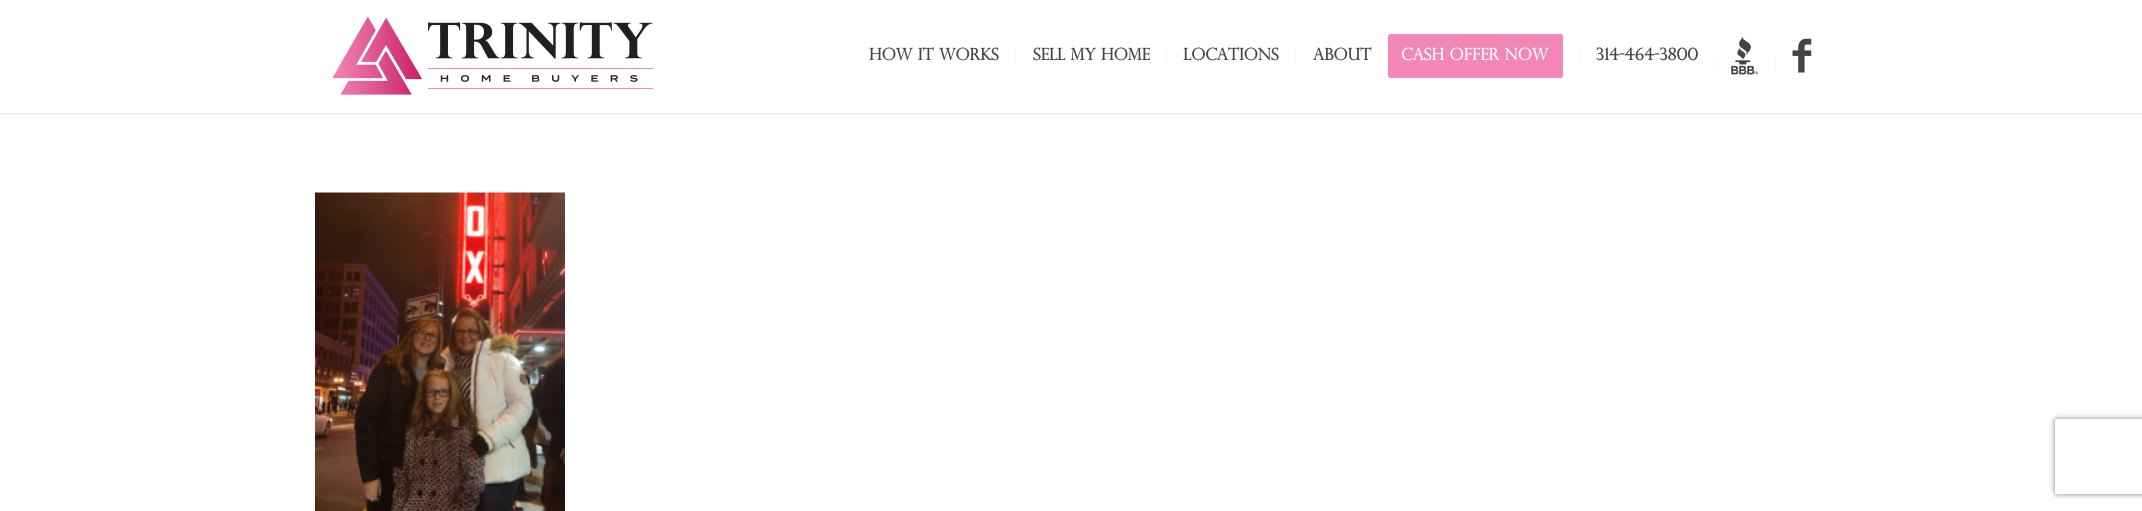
import math
import cairo

surface = cairo.ImageSurface(cairo.Format.RGB24, 2142, 511)
ctx = cairo.Context(surface)
options = cairo.FontOptions()
options.set_hint_metrics(cairo.HintMetrics.OFF)
options.set_hint_style(cairo.HintStyle.NONE)
ctx.set_font_options(options)
ctx.set_miter_limit(4)


def ink(r, g, b):
    ctx.set_source_rgb(r / 255, g / 255, b / 255)


def write(x, y, s, family, size, color, bold=False, italic=False):
    ctx.select_font_face(family, cairo.FontSlant.ITALIC if italic else cairo.FontSlant.NORMAL, cairo.FontWeight.BOLD if bold else cairo.FontWeight.NORMAL)
    ctx.set_font_size(size)
    ink(*color)
    ctx.move_to(x, y)
    ctx.show_text(s)


def block(x, y, w, h, *color):
    ink(*color)
    ctx.rectangle(x, y, w, h)
    ctx.fill()


def round_path(x, y, w, h, r):
    ctx.new_sub_path()
    for i, (u, v) in enumerate([(x + w - r, y + h - r), (x + r, y + h - r), (x + r, y + r), (x + w - r, y + r)]):
        ctx.arc(u, v, r, i * math.pi / 2, (i + 1) * math.pi / 2)
    ctx.close_path()


def blur_box(x, y, w, h, r, blur, alpha):
    ctx.push_group_with_content(cairo.Content.ALPHA)
    ctx.set_operator(cairo.Operator.SOURCE)
    for i in range(15, -16, -2):
        e = blur * i / 6
        if min(w, h) + 2 * e > 0:
            ctx.set_source_rgba(0, 0, 0, alpha * math.erfc((i - 1) / 8.5) / 2)
            round_path(x - e, y - e, w + 2 * e, h + 2 * e, max(0, min(r + e + blur * .6, min(w, h) / 2 + e)))
            ctx.fill()
    ctx.mask(ctx.pop_group())


def paste(path, x, y, w, h):
    ctx.save()
    ctx.set_source_surface(cairo.ImageSurface.create_from_png(path), x, y)
    ctx.rectangle(x, y, w, h)
    ctx.fill()
    ctx.restore()


s1 = dict(family="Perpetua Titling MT", size=16.25, color=(68, 68, 68), bold=True)
s2 = dict(family="Perpetua Titling MT", size=16.25, color=(255, 255, 255), bold=True)

ink(255, 255, 255)
ctx.paint()
ink(0, 0, 0)
blur_box(-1, -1, 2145, 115, 0, 1, 0.1)
block(0, 0, 2142, 113, 255, 255, 255)
paste("pic1.png", 332, 16, 321, 79)
write(869, 60, "How It Works", **s1)
write(1033, 60, "Sell My Home", **s1)
block(1015, 48, 1, 16, 248, 248, 248)
write(1183, 60, "Locations", **s1)
block(1166, 48, 1, 16, 248, 248, 248)
write(1313, 60, "About", **s1)
block(1295, 48, 1, 16, 248, 248, 248)
ink(242, 135, 183)
round_path(1389.5, 35.5, 172, 41, 1)
ctx.fill_preserve()
ctx.set_line_width(3)
ctx.stroke()
write(1401, 60, "Cash Offer Now", **s2)
write(1596, 60, "314-464-3800", **s1)
block(1579, 48, 1, 16, 248, 248, 248)
block(1714, 56, 1, 17, 248, 248, 248)
paste("pic2.png", 1731, 37, 28, 38)
block(1775, 56, 1, 17, 248, 248, 248)
paste("pic3.png", 1792, 38, 20, 35)
paste("pic4.png", 315, 192, 250, 319)
ctx.save()
ctx.set_fill_rule(cairo.FillRule.EVEN_ODD)
ctx.new_path()
ctx.move_to(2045, 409)
ctx.line_to(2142, 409)
ctx.line_to(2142, 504)
ctx.line_to(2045, 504)
ctx.close_path()
ctx.move_to(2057.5, 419)
ctx.line_to(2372.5, 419)
ctx.curve_to(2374, 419, 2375, 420, 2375, 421.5)
ctx.line_to(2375, 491.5)
ctx.curve_to(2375, 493, 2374, 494, 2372.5, 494)
ctx.line_to(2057.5, 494)
ctx.curve_to(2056, 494, 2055, 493, 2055, 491.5)
ctx.line_to(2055, 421.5)
ctx.curve_to(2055, 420, 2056, 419, 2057.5, 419)
ctx.close_path()
ctx.clip()
ink(128, 128, 128)
blur_box(2055, 419, 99, 75, 2.5, 3, 1)
ctx.restore()
surface.write_to_png("screenshot.png")
